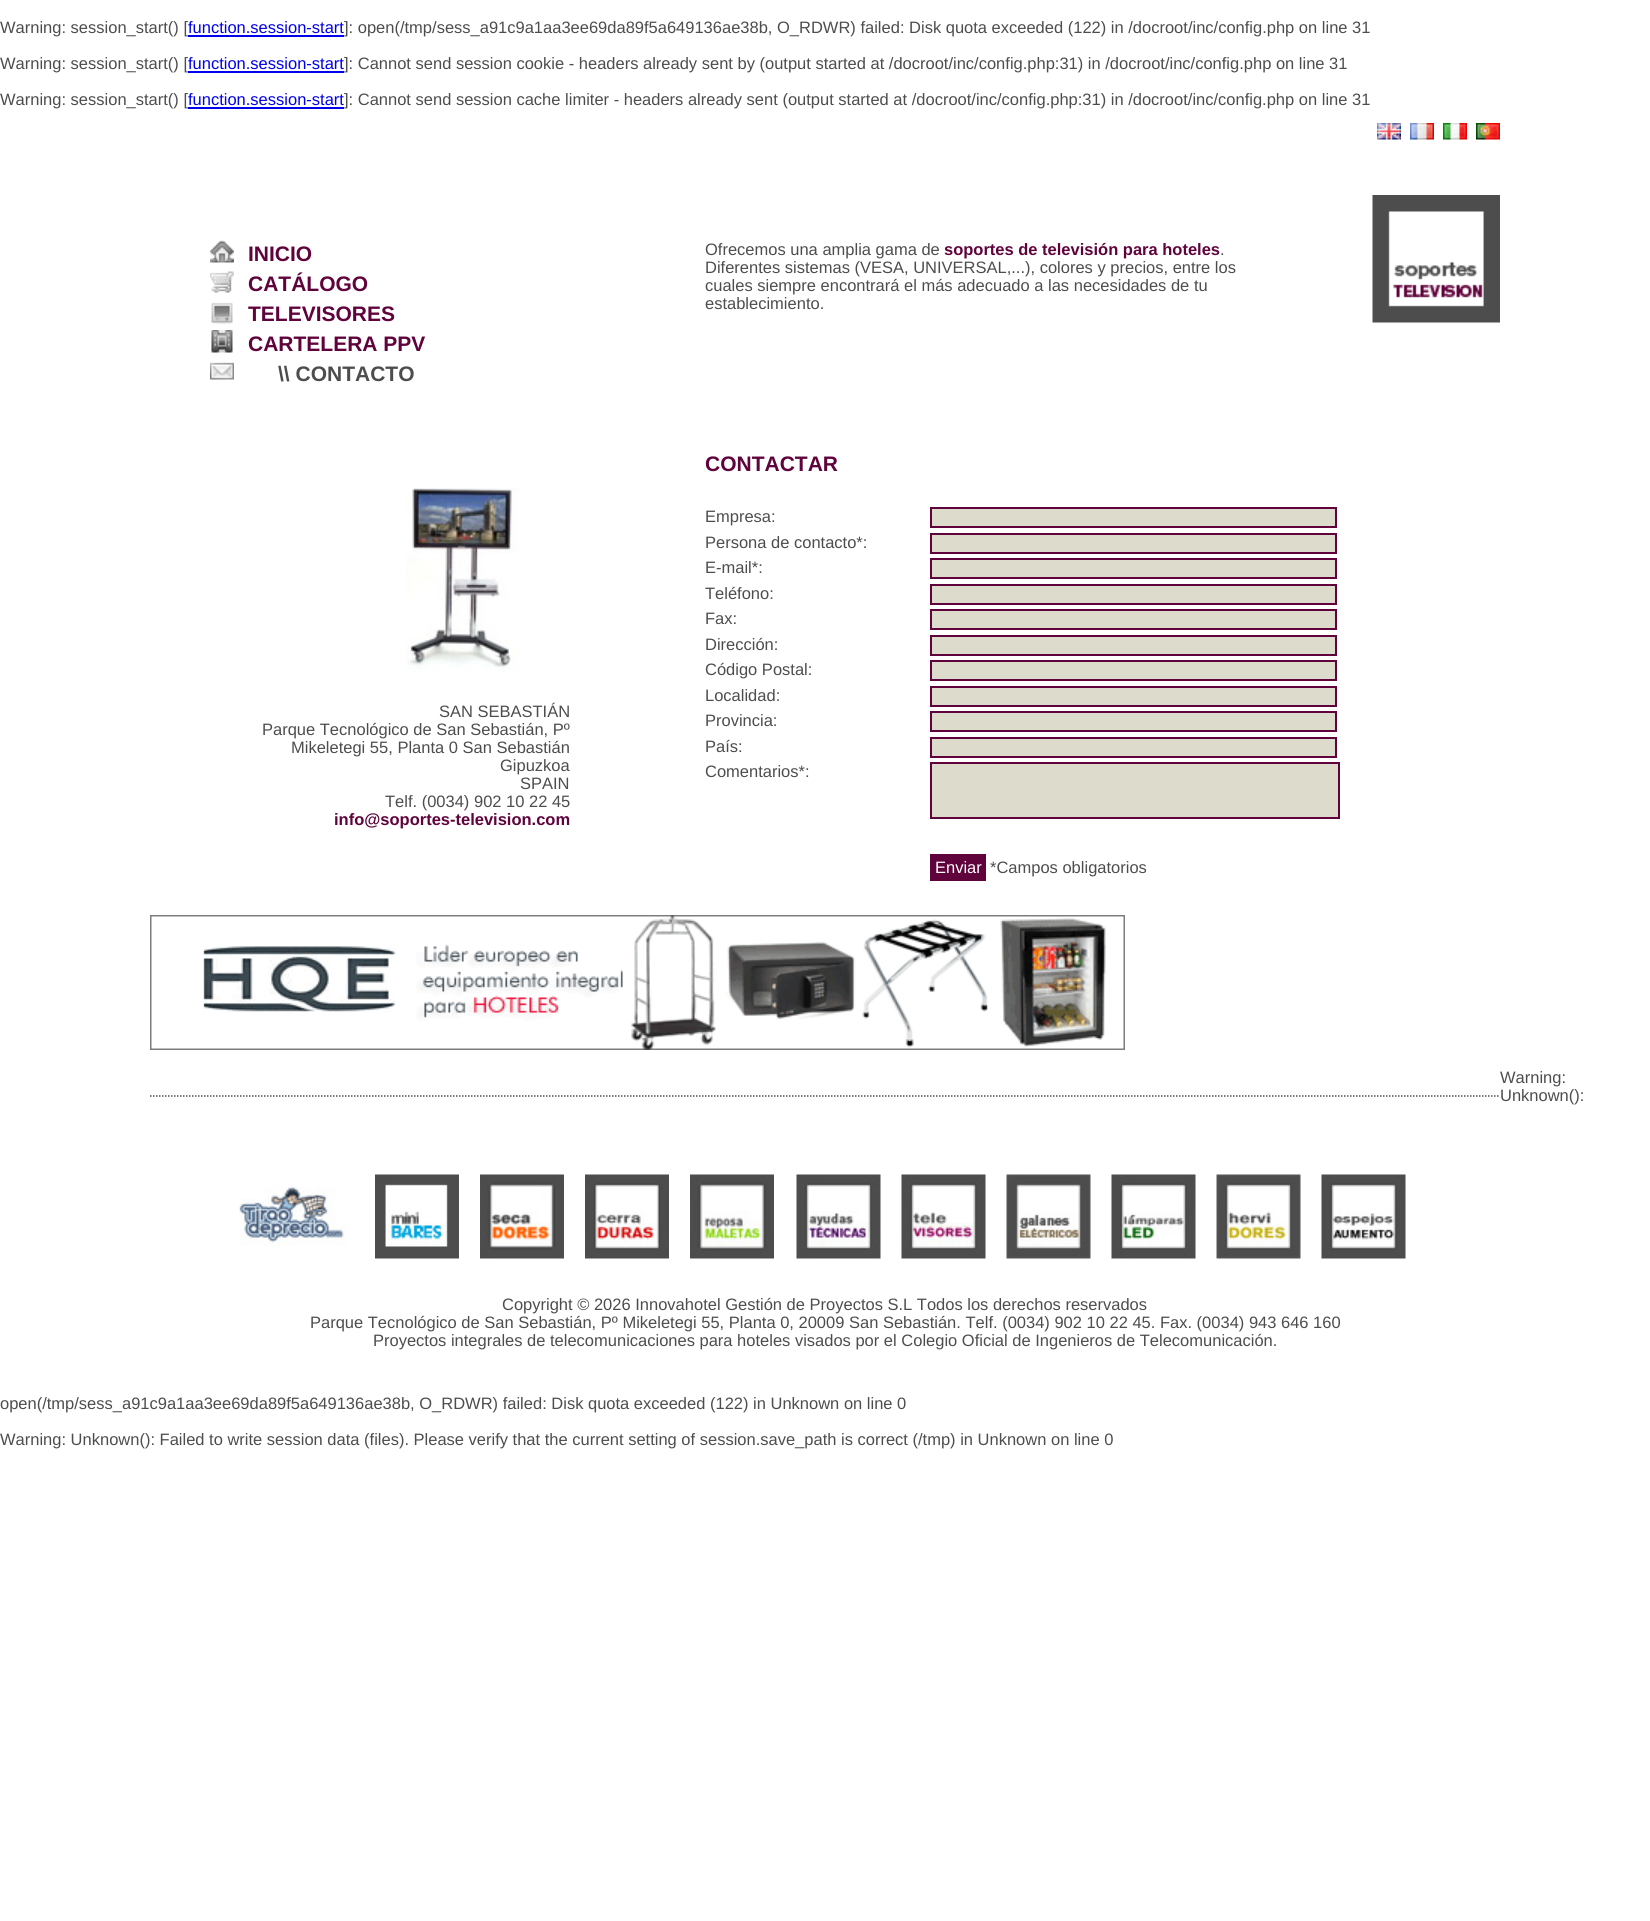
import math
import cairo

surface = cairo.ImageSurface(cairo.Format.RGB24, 1650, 1921)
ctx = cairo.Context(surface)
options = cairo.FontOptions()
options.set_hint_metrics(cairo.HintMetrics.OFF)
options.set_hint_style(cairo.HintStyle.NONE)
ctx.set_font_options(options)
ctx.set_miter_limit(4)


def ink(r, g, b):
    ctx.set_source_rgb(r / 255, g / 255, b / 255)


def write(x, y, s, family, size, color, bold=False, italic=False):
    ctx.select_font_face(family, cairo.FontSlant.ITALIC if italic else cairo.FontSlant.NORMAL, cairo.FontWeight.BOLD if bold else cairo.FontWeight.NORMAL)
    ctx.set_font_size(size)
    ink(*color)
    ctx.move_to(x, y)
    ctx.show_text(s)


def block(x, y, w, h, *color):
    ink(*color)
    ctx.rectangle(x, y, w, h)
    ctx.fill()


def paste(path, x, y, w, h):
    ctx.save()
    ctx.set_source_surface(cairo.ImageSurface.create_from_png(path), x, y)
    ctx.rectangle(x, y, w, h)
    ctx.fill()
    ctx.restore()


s1 = dict(family="Liberation Sans", size=16.5, color=(77, 77, 77))
s2 = dict(family="Liberation Sans", size=16.5, color=(0, 0, 238))
s3 = dict(family="Liberation Sans", size=21, color=(96, 3, 60), bold=True)
s4 = dict(family="Liberation Sans", size=21, color=(77, 77, 77), bold=True)
s5 = dict(family="Liberation Sans", size=16.5, color=(96, 3, 60), bold=True)
s6 = dict(family="Liberation Sans", size=16.5, color=(255, 255, 255))

ink(255, 255, 255)
ctx.paint()
write(0, 33, "Warning: session_start() [", **s1)
write(188, 33, "function.session-start", **s2)
block(188, 35, 156, 2, 0, 0, 238)
write(344, 33, "]: open(/tmp/sess_a91c9a1aa3ee69da89f5a649136ae38b, O_RDWR) failed: Disk quota exceeded (122) in /docroot/inc/config.php on line 31", **s1)
write(0, 69, "Warning: session_start() [", **s1)
write(188, 69, "function.session-start", **s2)
block(188, 71, 156, 2, 0, 0, 238)
write(344, 69, "]: Cannot send session cookie - headers already sent by (output started at /docroot/inc/config.php:31) in /docroot/inc/config.php on line 31", **s1)
write(0, 105, "Warning: session_start() [", **s1)
write(188, 105, "function.session-start", **s2)
block(188, 107, 156, 2, 0, 0, 238)
write(344, 105, "]: Cannot send session cache limiter - headers already sent (output started at /docroot/inc/config.php:31) in /docroot/inc/config.php on line 31", **s1)
paste("pic1.png", 1377, 123, 24, 17)
paste("pic2.png", 1410, 123, 24, 17)
paste("pic3.png", 1443, 123, 24, 17)
paste("pic4.png", 1476, 123, 24, 17)
paste("pic5.png", 210, 240, 24, 23)
write(248, 261, "INICIO", **s3)
paste("pic6.png", 210, 271, 24, 22)
write(248, 291, "CATÁLOGO", **s3)
paste("pic7.png", 211, 302, 22, 22)
write(248, 321, "TELEVISORES", **s3)
paste("pic8.png", 211, 330, 22, 23)
write(248, 351, "CARTELERA PPV", **s3)
paste("pic9.png", 210, 362, 24, 18)
write(278, 381, "\\\\ CONTACTO", **s4)
write(705, 255, "Ofrecemos una amplia gama de", **s1)
write(944, 255, "soportes de televisión para hoteles", **s5)
write(1220, 255, ".", **s1)
write(705, 273, "Diferentes sistemas (VESA, UNIVERSAL,...), colores y precios, entre los", **s1)
write(705, 291, "cuales siempre encontrará el más adecuado a las necesidades de tu", **s1)
write(705, 309, "establecimiento.", **s1)
paste("pic10.png", 1372, 195, 128, 128)
paste("pic11.png", 405, 488, 114, 184)
write(439, 717, "SAN SEBASTIÁN", **s1)
write(262, 735, "Parque Tecnológico de San Sebastián, Pº", **s1)
write(291, 753, "Mikeletegi 55, Planta 0 San Sebastián", **s1)
write(500, 771, "Gipuzkoa", **s1)
write(520, 789, "SPAIN", **s1)
write(385, 807, "Telf. (0034) 902 10 22 45", **s1)
write(334, 825, "info@soportes-television.com", **s5)
write(705, 471, "CONTACTAR", **s3)
write(705, 522, "Empresa:", **s1)
ink(221, 219, 204)
ctx.rectangle(931, 508, 405, 19)
ctx.fill_preserve()
ink(96, 3, 60)
ctx.stroke()
write(705, 548, "Persona de contacto*:", **s1)
ink(221, 219, 204)
ctx.rectangle(931, 534, 405, 19)
ctx.fill_preserve()
ink(96, 3, 60)
ctx.stroke()
write(705, 573, "E-mail*:", **s1)
ink(221, 219, 204)
ctx.rectangle(931, 559, 405, 19)
ctx.fill_preserve()
ink(96, 3, 60)
ctx.stroke()
write(705, 599, "Teléfono:", **s1)
ink(221, 219, 204)
ctx.rectangle(931, 585, 405, 19)
ctx.fill_preserve()
ink(96, 3, 60)
ctx.stroke()
write(705, 624, "Fax:", **s1)
ink(221, 219, 204)
ctx.rectangle(931, 610, 405, 19)
ctx.fill_preserve()
ink(96, 3, 60)
ctx.stroke()
write(705, 650, "Dirección:", **s1)
ink(221, 219, 204)
ctx.rectangle(931, 636, 405, 19)
ctx.fill_preserve()
ink(96, 3, 60)
ctx.stroke()
write(705, 675, "Código Postal:", **s1)
ink(221, 219, 204)
ctx.rectangle(931, 661, 405, 19)
ctx.fill_preserve()
ink(96, 3, 60)
ctx.stroke()
write(705, 701, "Localidad:", **s1)
ink(221, 219, 204)
ctx.rectangle(931, 687, 405, 19)
ctx.fill_preserve()
ink(96, 3, 60)
ctx.stroke()
write(705, 726, "Provincia:", **s1)
ink(221, 219, 204)
ctx.rectangle(931, 712, 405, 19)
ctx.fill_preserve()
ink(96, 3, 60)
ctx.stroke()
write(705, 752, "País:", **s1)
ink(221, 219, 204)
ctx.rectangle(931, 738, 405, 19)
ctx.fill_preserve()
ink(96, 3, 60)
ctx.stroke()
write(705, 777, "Comentarios*:", **s1)
ink(221, 219, 204)
ctx.rectangle(931, 763, 408, 55)
ctx.fill_preserve()
ink(96, 3, 60)
ctx.stroke()
block(930, 854, 56, 27, 96, 3, 60)
write(935, 873, "Enviar", **s6)
write(990, 873, "*Campos obligatorios", **s1)
paste("pic12.png", 150, 915, 975, 135)
ctx.new_path()
ctx.move_to(150, 1096)
ctx.line_to(1500, 1096)
ctx.set_line_width(1.5)
ctx.set_dash([1.5, 1.5])
ctx.stroke()
paste("pic13.png", 239, 1186, 109, 60)
paste("pic14.png", 375, 1174, 84, 85)
paste("pic15.png", 480, 1174, 84, 85)
paste("pic16.png", 585, 1174, 84, 85)
paste("pic17.png", 690, 1174, 84, 85)
paste("pic18.png", 796, 1174, 85, 85)
paste("pic19.png", 901, 1174, 85, 85)
paste("pic20.png", 1006, 1174, 85, 85)
paste("pic21.png", 1111, 1174, 85, 85)
paste("pic22.png", 1216, 1174, 85, 85)
paste("pic23.png", 1321, 1174, 85, 85)
write(502, 1310, "Copyright © 2026 Innovahotel Gestión de Proyectos S.L Todos los derechos reservados", **s1)
write(310, 1328, "Parque Tecnológico de San Sebastián, Pº Mikeletegi 55, Planta 0, 20009 San Sebastián. Telf. (0034) 902 10 22 45. Fax. (0034) 943 646 160", **s1)
write(373, 1346, "Proyectos integrales de telecomunicaciones para hoteles visados por el Colegio Oficial de Ingenieros de Telecomunicación.", **s1)
write(1500, 1083, "Warning:", **s1)
write(1500, 1101, "Unknown():", **s1)
write(0, 1409, "open(/tmp/sess_a91c9a1aa3ee69da89f5a649136ae38b, O_RDWR) failed: Disk quota exceeded (122) in Unknown on line 0", **s1)
write(0, 1445, "Warning: Unknown(): Failed to write session data (files). Please verify that the current setting of session.save_path is correct (/tmp) in Unknown on line 0", **s1)
surface.write_to_png("screenshot.png")
